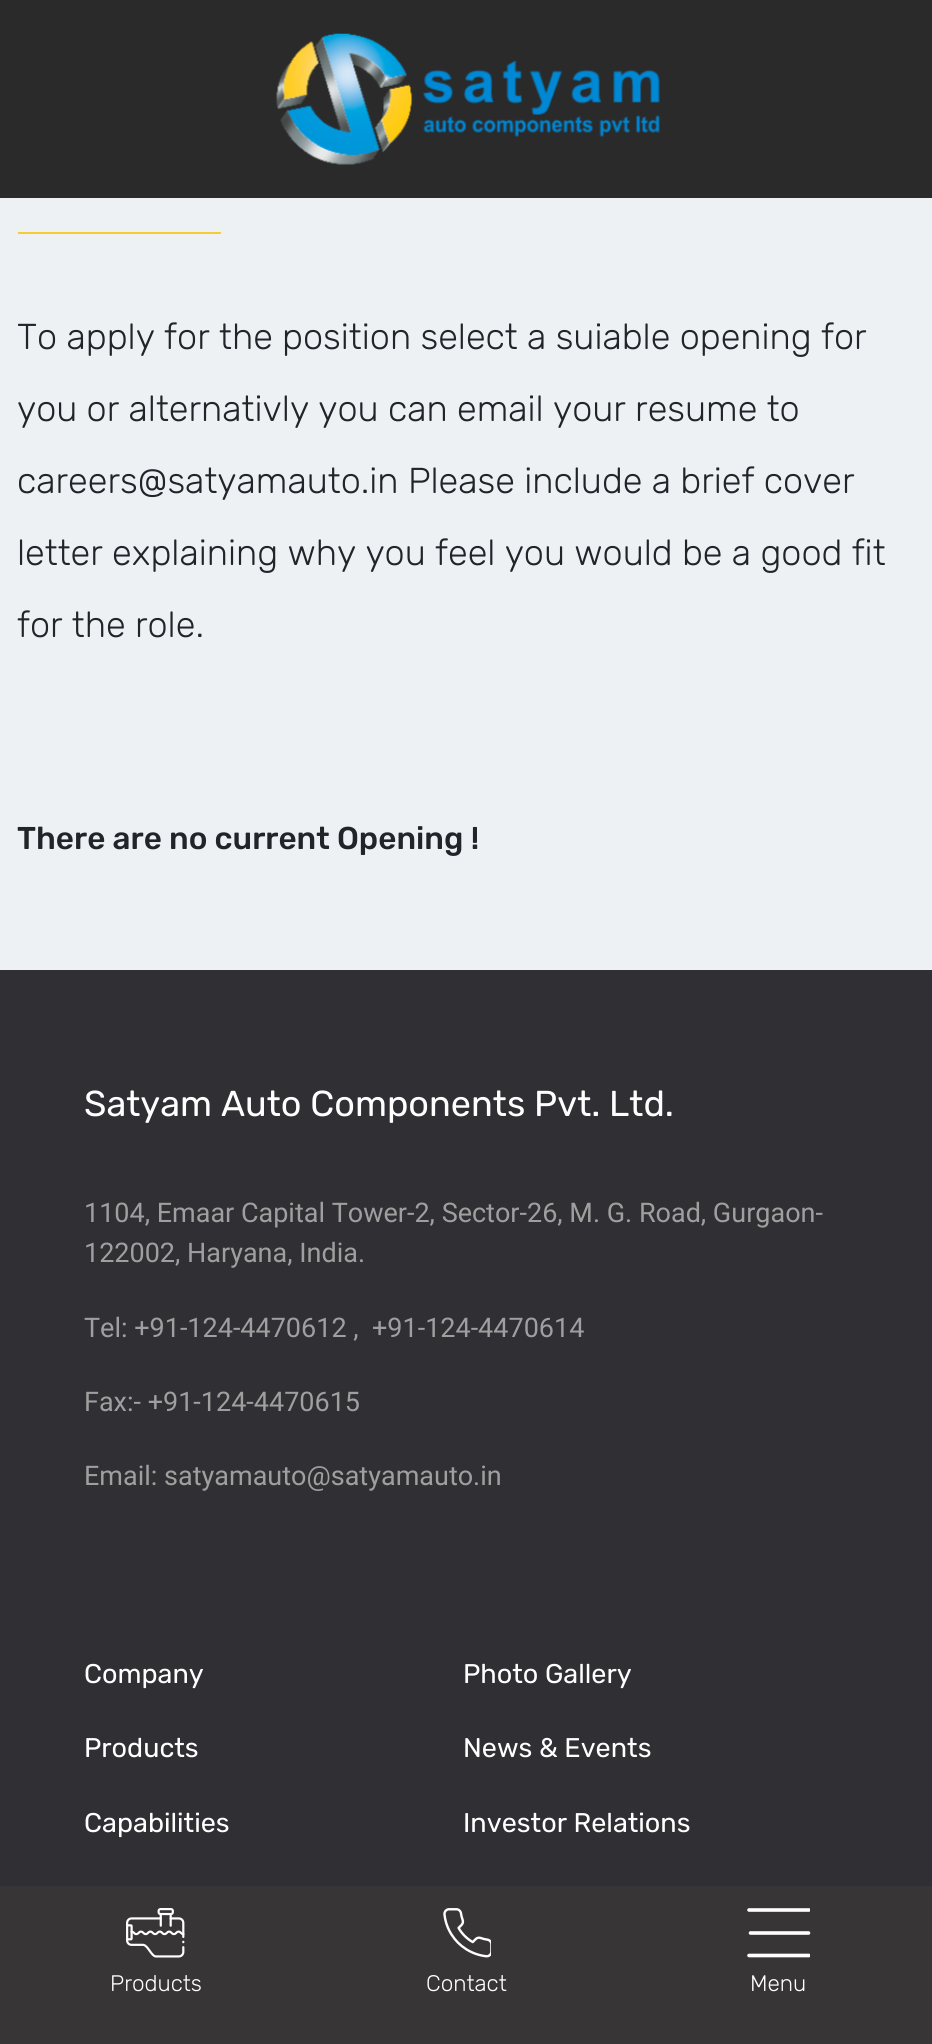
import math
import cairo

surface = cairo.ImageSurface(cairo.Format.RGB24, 932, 2044)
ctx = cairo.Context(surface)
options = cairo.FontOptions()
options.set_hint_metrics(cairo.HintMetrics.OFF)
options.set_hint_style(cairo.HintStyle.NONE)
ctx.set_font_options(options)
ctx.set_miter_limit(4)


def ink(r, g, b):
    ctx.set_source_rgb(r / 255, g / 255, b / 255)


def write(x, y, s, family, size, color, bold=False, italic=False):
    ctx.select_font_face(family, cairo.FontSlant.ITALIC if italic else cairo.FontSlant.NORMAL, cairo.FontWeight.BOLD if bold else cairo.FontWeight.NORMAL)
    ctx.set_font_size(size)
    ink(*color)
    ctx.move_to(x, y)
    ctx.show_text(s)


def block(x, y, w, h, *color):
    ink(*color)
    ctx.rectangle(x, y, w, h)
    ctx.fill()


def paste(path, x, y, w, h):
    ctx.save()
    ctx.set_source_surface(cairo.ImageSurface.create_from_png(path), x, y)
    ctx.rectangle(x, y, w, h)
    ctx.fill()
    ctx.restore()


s1 = dict(family="Rubik Light", size=36, color=(33, 37, 41))
s2 = dict(family="Rubik Medium", size=31.5, color=(33, 37, 41))
s3 = dict(family="Rubik", size=36, color=(255, 255, 255))
s4 = dict(family="Roboto", size=27, color=(159, 159, 159))
s5 = dict(family="Rubik", size=27, color=(255, 255, 255))
s6 = dict(family="Rubik Light", size=22.5, color=(255, 255, 255))

ink(238, 241, 243)
ctx.paint()
block(0, 0, 932, 198, 42, 42, 42)
paste("pic1.png", 276, 33, 384, 132)
block(18, 232, 203, 2, 249, 202, 52)
write(17, 349, "To apply for the position select a suiable opening for", **s1)
write(17, 421, "you or alternativly you can email your resume to", **s1)
write(17, 493, "careers@satyamauto.in Please include a brief cover", **s1)
write(17, 565, "letter explaining why you feel you would be a good fit", **s1)
write(17, 637, "for the role.", **s1)
write(17, 849, "There are no current Opening !", **s2)
block(0, 970, 932, 916, 47, 47, 52)
write(84, 1116, "Satyam Auto Components Pvt. Ltd.", **s3)
write(84, 1222, "1104, Emaar Capital Tower-2, Sector-26, M. G. Road, Gurgaon-", **s4)
write(84, 1262, "122002, Haryana, India.", **s4)
write(84, 1337, "Tel: +91-124-4470612 ,", **s4)
write(372, 1337, "+91-124-4470614", **s4)
write(84, 1411, "Fax:- +91-124-4470615", **s4)
write(84, 1485, "Email: satyamauto@satyamauto.in", **s4)
write(84, 1683, "Company", **s5)
write(84, 1757, "Products", **s5)
write(84, 1832, "Capabilities", **s5)
write(463, 1683, "Photo Gallery", **s5)
write(463, 1757, "News & Events", **s5)
write(463, 1832, "Investor Relations", **s5)
block(0, 1886, 932, 158, 55, 53, 53)
paste("pic2.png", 126, 1908, 59, 50)
write(110, 1991, "Products", **s6)
paste("pic3.png", 443, 1908, 48, 50)
write(426, 1991, "Contact", **s6)
ctx.save()
ctx.rectangle(747, 1908, 63, 50)
ctx.clip()
ctx.new_path()
ctx.move_to(749, 1910)
ctx.line_to(809, 1910)
ctx.set_line_width(3.6)
ctx.set_line_cap(cairo.LineCap.ROUND)
ctx.stroke()
ctx.restore()
ctx.new_path()
ctx.move_to(750.5, 1933)
ctx.line_to(808.5, 1933)
ctx.set_line_width(3.6)
ctx.set_line_cap(cairo.LineCap.ROUND)
ctx.stroke()
ctx.save()
ctx.rectangle(747, 1908, 63, 50)
ctx.clip()
ctx.new_path()
ctx.move_to(749, 1955.5)
ctx.line_to(809, 1955.5)
ctx.stroke()
ctx.restore()
write(750, 1991, "Menu", **s6)
surface.write_to_png("screenshot.png")
